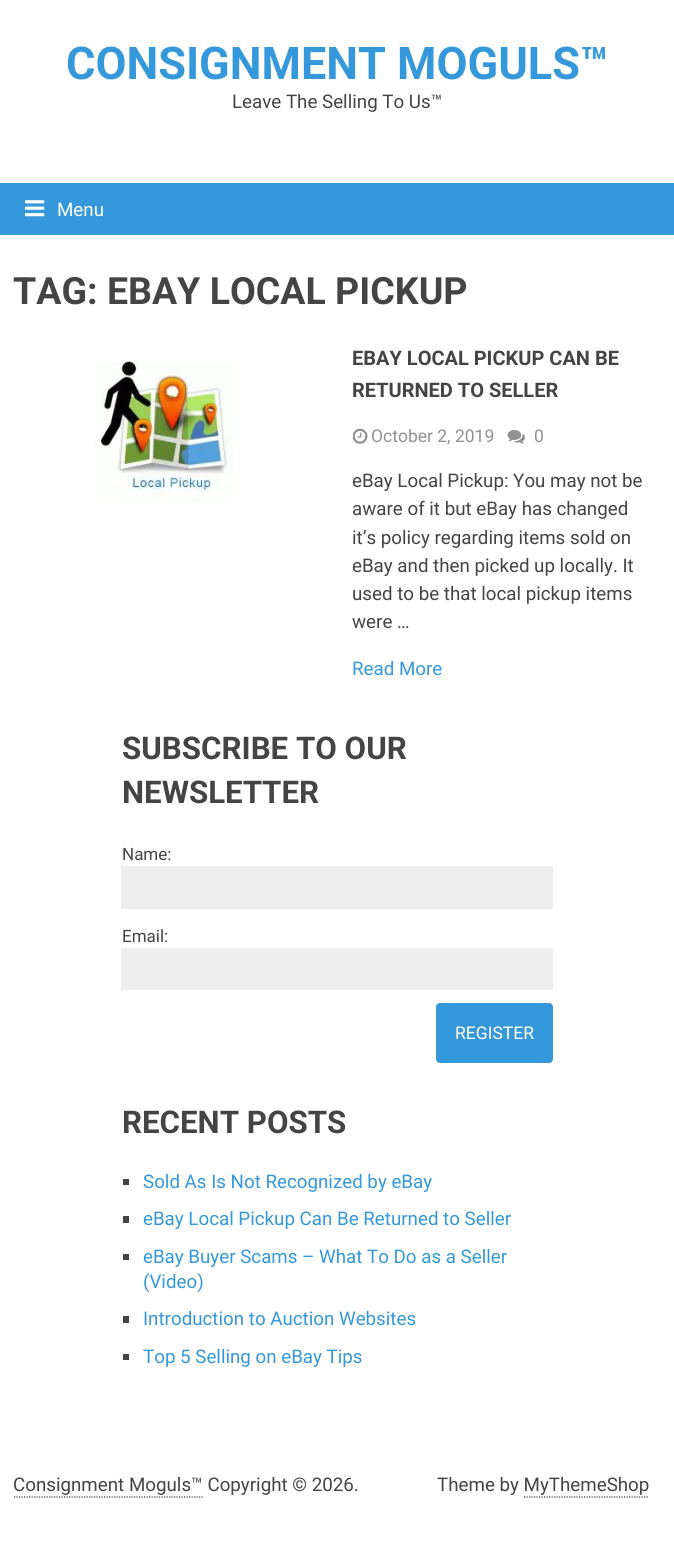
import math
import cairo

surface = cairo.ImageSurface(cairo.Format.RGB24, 674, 1562)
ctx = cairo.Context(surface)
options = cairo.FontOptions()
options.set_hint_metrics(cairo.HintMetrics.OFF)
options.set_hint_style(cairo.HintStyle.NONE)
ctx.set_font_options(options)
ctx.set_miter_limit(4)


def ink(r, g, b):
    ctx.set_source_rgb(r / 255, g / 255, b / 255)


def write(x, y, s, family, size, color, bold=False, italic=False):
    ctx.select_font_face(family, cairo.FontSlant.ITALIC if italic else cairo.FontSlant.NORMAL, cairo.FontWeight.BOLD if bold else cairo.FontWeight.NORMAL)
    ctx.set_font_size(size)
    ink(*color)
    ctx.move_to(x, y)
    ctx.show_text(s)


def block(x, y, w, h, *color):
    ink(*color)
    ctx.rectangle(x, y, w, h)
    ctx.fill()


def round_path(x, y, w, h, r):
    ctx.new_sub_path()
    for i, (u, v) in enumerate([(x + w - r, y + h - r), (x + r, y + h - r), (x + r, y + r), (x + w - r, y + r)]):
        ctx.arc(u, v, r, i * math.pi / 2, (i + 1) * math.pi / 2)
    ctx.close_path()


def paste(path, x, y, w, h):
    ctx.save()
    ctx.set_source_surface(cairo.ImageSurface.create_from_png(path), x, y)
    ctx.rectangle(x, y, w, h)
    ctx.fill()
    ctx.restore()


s1 = dict(family="Roboto", size=45, color=(52, 152, 219), bold=True)
s2 = dict(family="Roboto", size=18.75, color=(68, 68, 68))
s3 = dict(family="Roboto", size=18.75, color=(255, 255, 255))
s4 = dict(family="Roboto", size=37.5, color=(68, 68, 68), bold=True)
s5 = dict(family="Roboto", size=20, color=(68, 68, 68), bold=True)
s6 = dict(family="Roboto", size=17.5, color=(145, 145, 145))
s7 = dict(family="Roboto", size=18.75, color=(52, 152, 219))
s8 = dict(family="Roboto", size=31.25, color=(68, 68, 68), bold=True)
s9 = dict(family="Roboto", size=17, color=(68, 68, 68))
s10 = dict(family="Roboto", size=17.5, color=(255, 255, 255))

ink(255, 255, 255)
ctx.paint()
write(66, 79, "CONSIGNMENT MOGULS™", **s1)
write(232, 108, "Leave The Selling To Us™", **s2)
block(0, 183, 674, 52, 52, 152, 219)
paste("pic1.png", 25, 200, 20, 17)
write(57, 216, "Menu", **s3)
write(13, 304, "TAG: EBAY LOCAL PICKUP", **s4)
paste("pic2.png", 94, 361, 139, 140)
write(352, 365, "EBAY LOCAL PICKUP CAN BE", **s5)
write(352, 397, "RETURNED TO SELLER", **s5)
paste("pic3.png", 353, 428, 15, 16)
write(371, 442, "October 2, 2019", **s6)
paste("pic4.png", 507, 430, 18, 14)
write(534, 442, "0", **s6)
write(352, 487, "eBay Local Pickup: You may not be", **s2)
write(352, 515, "aware of it but eBay has changed", **s2)
write(352, 544, "it’s policy regarding items sold on", **s2)
write(352, 572, "eBay and then picked up locally. It", **s2)
write(352, 600, "used to be that local pickup items", **s2)
write(352, 628, "were …", **s2)
write(352, 675, "Read More", **s7)
write(122, 759, "SUBSCRIBE TO OUR", **s8)
write(122, 803, "NEWSLETTER", **s8)
write(122, 860, "Name:", **s9)
block(121, 866, 432, 43, 238, 238, 238)
write(122, 942, "Email:", **s9)
block(121, 948, 432, 42, 238, 238, 238)
ink(52, 152, 219)
round_path(436, 1003, 117, 60, 4)
ctx.fill()
write(455, 1039, "REGISTER", **s10)
write(122, 1133, "RECENT POSTS", **s8)
block(123, 1179, 6, 6, 68, 68, 68)
write(143, 1188, "Sold As Is Not Recognized by eBay", **s7)
block(123, 1216, 6, 7, 68, 68, 68)
write(143, 1225, "eBay Local Pickup Can Be Returned to Seller", **s7)
block(123, 1254, 6, 6, 68, 68, 68)
write(143, 1263, "eBay Buyer Scams – What To Do as a Seller", **s7)
write(143, 1288, "(Video)", **s7)
block(123, 1316, 6, 7, 68, 68, 68)
write(143, 1325, "Introduction to Auction Websites", **s7)
block(123, 1354, 6, 6, 68, 68, 68)
write(143, 1363, "Top 5 Selling on eBay Tips", **s7)
write(13, 1491, "Consignment Moguls™ Copyright © 2026.", **s2)
ctx.new_path()
ctx.move_to(14, 1497)
ctx.line_to(204, 1497)
ctx.set_line_width(1.2)
ctx.set_dash([1.25, 1.25])
ctx.stroke()
write(437, 1491, "Theme by MyThemeShop", **s2)
ctx.new_path()
ctx.move_to(524, 1497)
ctx.line_to(649, 1497)
ctx.stroke()
surface.write_to_png("screenshot.png")
